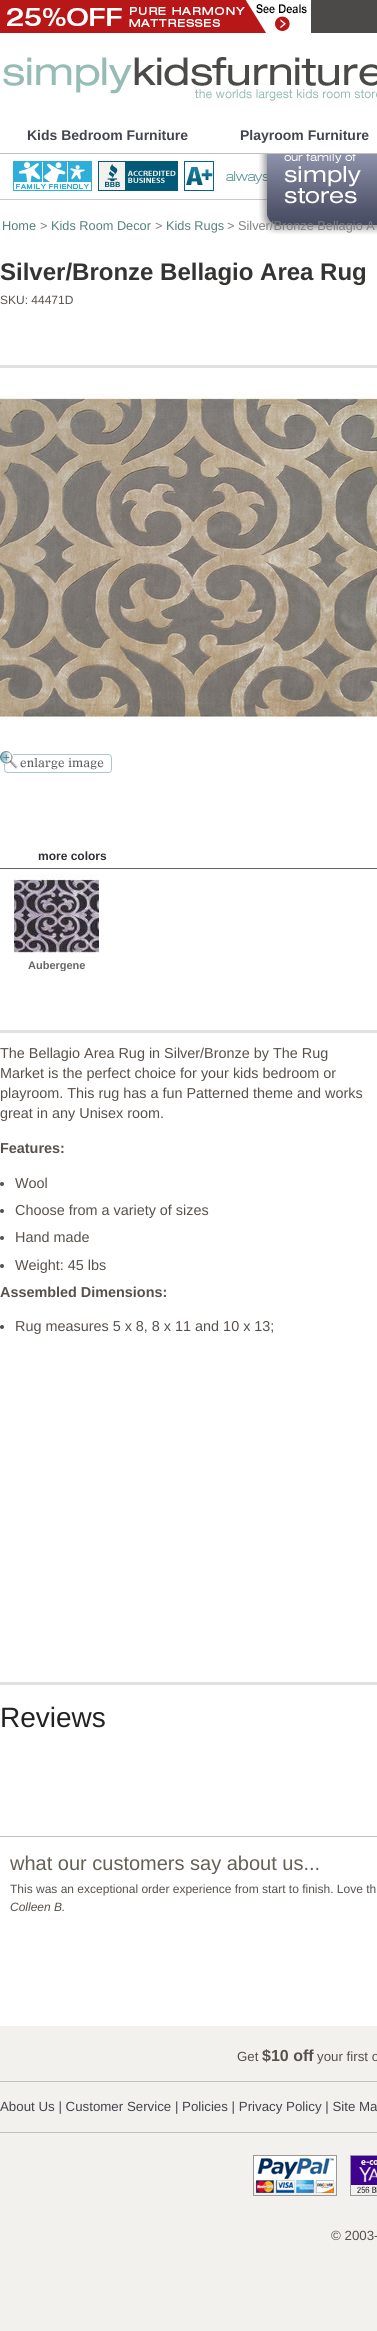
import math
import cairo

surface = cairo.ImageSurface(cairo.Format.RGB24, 377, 2331)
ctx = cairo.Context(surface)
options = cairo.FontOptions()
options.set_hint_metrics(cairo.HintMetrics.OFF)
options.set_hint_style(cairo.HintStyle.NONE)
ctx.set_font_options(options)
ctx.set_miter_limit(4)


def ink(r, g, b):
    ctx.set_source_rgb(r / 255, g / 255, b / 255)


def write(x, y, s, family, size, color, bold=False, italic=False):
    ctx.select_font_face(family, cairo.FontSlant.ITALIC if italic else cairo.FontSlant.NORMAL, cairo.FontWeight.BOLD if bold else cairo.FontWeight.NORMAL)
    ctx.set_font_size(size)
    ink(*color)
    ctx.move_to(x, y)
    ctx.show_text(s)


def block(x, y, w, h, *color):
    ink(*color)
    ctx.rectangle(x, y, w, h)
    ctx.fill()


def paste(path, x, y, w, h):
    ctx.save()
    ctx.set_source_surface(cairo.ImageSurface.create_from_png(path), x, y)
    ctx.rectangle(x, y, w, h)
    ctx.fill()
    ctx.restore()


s1 = dict(family="Liberation Sans", size=14, color=(66, 68, 80), bold=True)
s2 = dict(family="Liberation Sans", size=12.75, color=(86, 128, 126))
s3 = dict(family="Liberation Sans", size=12.75, color=(128, 128, 128))
s4 = dict(family="Liberation Sans", size=24, color=(53, 52, 50), bold=True)
s5 = dict(family="Liberation Sans", size=12, color=(87, 81, 76))
s6 = dict(family="Liberation Sans", size=12, color=(46, 45, 53), bold=True)
s7 = dict(family="Liberation Sans", size=11, color=(102, 102, 102), bold=True)
s8 = dict(family="Liberation Sans", size=14.4, color=(87, 81, 76))
s9 = dict(family="Liberation Sans", size=14.4, color=(87, 81, 76), bold=True)
s10 = dict(family="Liberation Sans", size=28, color=(34, 34, 34))
s11 = dict(family="Liberation Sans", size=20, color=(102, 96, 87))
s12 = dict(family="Liberation Sans", size=12, color=(87, 81, 76), italic=True)
s13 = dict(family="Liberation Sans", size=13.3, color=(87, 81, 76))
s14 = dict(family="Liberation Sans", size=16, color=(87, 81, 76), bold=True)
s15 = dict(family="Liberation Sans", size=13.3, color=(66, 68, 80))

ink(242, 241, 237)
ctx.paint()
block(311, 0, 66, 33, 75, 74, 72)
paste("pic1.png", 0, 0, 311, 33)
block(0, 33, 377, 85, 255, 255, 255)
paste("pic2.png", 3, 57, 374, 44)
block(0, 118, 377, 35, 255, 255, 255)
write(27, 140, "Kids Bedroom Furniture", **s1)
write(240, 140, "Playroom Furniture", **s1)
block(0, 153, 377, 1, 192, 192, 192)
block(0, 200, 377, 1826, 255, 255, 255)
paste("pic3.png", 0, 154, 96, 46)
paste("pic4.png", 96, 154, 125, 46)
paste("pic5.png", 221, 154, 46, 46)
paste("pic6.png", 259, 154, 118, 80)
write(2, 230, "Home", **s2)
write(40, 230, ">", **s3)
write(51, 230, "Kids Room Decor", **s2)
write(155, 230, ">", **s3)
write(166, 230, "Kids Rugs", **s2)
write(227, 230, "> Silver/Bronze Bellagio A", **s3)
block(0, 365, 377, 3, 225, 225, 225)
write(0, 280, "Silver/Bronze Bellagio Area Rug", **s4)
write(0, 304, "SKU: 44471D", **s5)
paste("pic7.png", 0, 385, 377, 335)
paste("pic8.png", 0, 751, 112, 22)
write(38, 860, "more colors", **s6)
block(0, 868, 377, 1, 97, 96, 101)
paste("pic9.png", 14, 874, 85, 80)
ctx.save()
ctx.rectangle(14, 874, 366, 97)
ctx.clip()
write(28, 969, "Aubergene", **s7)
ctx.restore()
block(0, 1030, 377, 3, 225, 225, 225)
write(0, 1058, "The Bellagio Area Rug in Silver/Bronze by The Rug", **s8)
write(0, 1078, "Market is the perfect choice for your kids bedroom or", **s8)
write(0, 1098, "playroom. This rug has a fun Patterned theme and works", **s8)
write(0, 1118, "great in any Unisex room.", **s8)
write(0, 1153, "Features:", **s9)
ctx.new_path()
ctx.arc(2, 1184, 2, 0, 2 * math.pi)
ctx.fill()
write(15, 1188, "Wool", **s8)
ctx.new_path()
ctx.arc(2, 1211, 2, 0, 2 * math.pi)
ctx.fill()
write(15, 1215, "Choose from a variety of sizes", **s8)
ctx.new_path()
ctx.arc(2, 1238, 2, 0, 2 * math.pi)
ctx.fill()
write(15, 1242, "Hand made", **s8)
ctx.new_path()
ctx.arc(2, 1266, 2, 0, 2 * math.pi)
ctx.fill()
write(15, 1270, "Weight: 45 lbs", **s8)
write(0, 1297, "Assembled Dimensions:", **s9)
ctx.new_path()
ctx.arc(2, 1327, 2, 0, 2 * math.pi)
ctx.fill()
write(15, 1331, "Rug measures 5 x 8, 8 x 11 and 10 x 13;", **s8)
block(0, 1682, 377, 3, 225, 225, 225)
write(0, 1727, "Reviews", **s10)
block(0, 1836, 377, 1, 194, 194, 189)
write(10, 1870, "what our customers say about us...", **s11)
write(10, 1893, "This was an exceptional order experience from start to finish. Love th", **s5)
write(10, 1911, "Colleen B.", **s12)
write(237, 2061, "Get", **s13)
write(262, 2061, "$10 off", **s14)
write(317, 2061, "your first o", **s13)
block(0, 2081, 377, 1, 192, 192, 192)
block(0, 2132, 377, 1, 192, 192, 192)
write(0, 2111, "About Us | Customer Service | Policies | Privacy Policy | Site Ma", **s15)
paste("pic10.png", 253, 2155, 84, 41)
paste("pic11.png", 350, 2155, 27, 41)
write(331, 2240, "© 2003-", **s13)
surface.write_to_png("screenshot.png")
